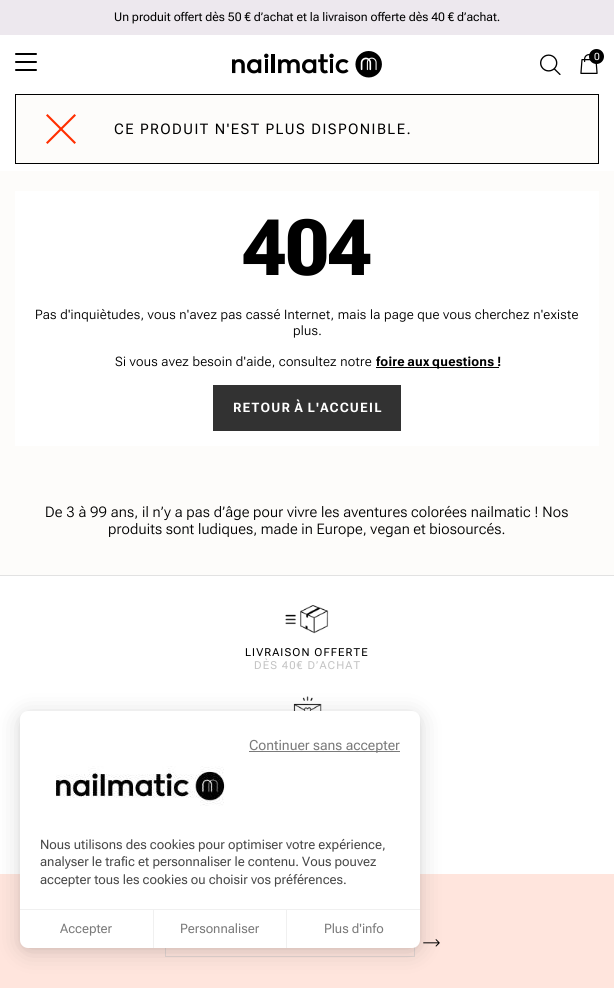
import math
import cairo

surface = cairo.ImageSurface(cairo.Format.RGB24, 614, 988)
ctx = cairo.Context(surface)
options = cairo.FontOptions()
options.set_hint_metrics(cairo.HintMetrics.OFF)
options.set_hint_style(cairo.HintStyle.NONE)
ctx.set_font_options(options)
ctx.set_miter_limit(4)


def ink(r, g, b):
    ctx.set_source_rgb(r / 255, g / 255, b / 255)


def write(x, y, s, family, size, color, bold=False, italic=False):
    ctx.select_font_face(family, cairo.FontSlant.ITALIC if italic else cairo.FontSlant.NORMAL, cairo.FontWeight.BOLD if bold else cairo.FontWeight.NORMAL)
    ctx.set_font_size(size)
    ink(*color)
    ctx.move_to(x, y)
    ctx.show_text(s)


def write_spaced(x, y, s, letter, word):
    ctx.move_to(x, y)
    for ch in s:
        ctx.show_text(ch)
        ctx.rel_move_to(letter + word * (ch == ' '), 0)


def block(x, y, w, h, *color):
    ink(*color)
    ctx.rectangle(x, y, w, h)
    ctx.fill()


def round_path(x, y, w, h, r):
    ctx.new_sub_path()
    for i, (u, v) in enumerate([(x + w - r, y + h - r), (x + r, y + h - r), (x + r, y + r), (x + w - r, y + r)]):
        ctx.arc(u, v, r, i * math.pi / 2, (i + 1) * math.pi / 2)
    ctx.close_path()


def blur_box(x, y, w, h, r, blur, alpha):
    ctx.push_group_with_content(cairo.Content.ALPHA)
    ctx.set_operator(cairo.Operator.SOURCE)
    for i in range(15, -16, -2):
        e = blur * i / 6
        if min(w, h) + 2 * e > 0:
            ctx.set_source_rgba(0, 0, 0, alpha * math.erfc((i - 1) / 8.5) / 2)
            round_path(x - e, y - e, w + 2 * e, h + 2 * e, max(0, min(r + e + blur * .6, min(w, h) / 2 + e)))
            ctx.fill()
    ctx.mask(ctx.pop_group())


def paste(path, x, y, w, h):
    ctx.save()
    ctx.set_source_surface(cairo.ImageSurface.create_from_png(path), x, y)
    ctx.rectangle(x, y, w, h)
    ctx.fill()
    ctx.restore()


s1 = dict(family="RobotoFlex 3", size=12, color=(0, 0, 0))
s2 = dict(family="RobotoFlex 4", size=10, color=(255, 255, 255))
s3 = dict(family="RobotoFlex", size=78, color=(0, 0, 0), bold=True)
s4 = dict(family="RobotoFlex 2", size=14, color=(122, 122, 122))
s5 = dict(family="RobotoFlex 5", size=13, color=(72, 72, 72))
s6 = dict(family="RobotoFlex 5", size=13, color=(122, 122, 122))

ink(255, 255, 255)
ctx.paint()
block(0, 0, 614, 35, 237, 232, 238)
write(114, 21, "Un produit offert dès 50 € d’achat et la livraison offerte dès 40 € d’achat.", **s1)
round_path(15, 61, 22, 2, 1)
ctx.fill()
round_path(15, 53, 22, 2, 1)
ctx.fill()
round_path(15, 69, 22, 2, 1)
ctx.fill()
paste("pic1.png", 232, 51, 150, 27)
paste("pic2.png", 540, 54, 21, 21)
paste("pic3.png", 580, 54, 18, 20)
ctx.arc(596.5, 56.5, 7.5, 0, 2 * math.pi)
ctx.fill()
write(594, 60, "0", **s2)
ink(253, 252, 250)
ctx.rectangle(15.5, 94.5, 583, 69)
ctx.fill_preserve()
ink(0, 0, 0)
ctx.set_line_width(1)
ctx.stroke()
ink(255, 46, 0)
ctx.set_fill_rule(cairo.FillRule.EVEN_ODD)
ctx.new_path()
ctx.move_to(74.5, 144)
ctx.line_to(46, 115.5)
ctx.line_to(47.5, 114)
ctx.line_to(76, 142.5)
ctx.close_path()
ctx.fill()
ctx.new_path()
ctx.move_to(46, 142.5)
ctx.line_to(74.5, 114)
ctx.line_to(76, 115.5)
ctx.line_to(47.5, 144)
ctx.close_path()
ctx.fill()
ctx.select_font_face("RobotoFlex 2")
ctx.set_font_size(14.6)
ink(0, 0, 0)
write_spaced(114, 134, "CE PRODUIT N'EST PLUS DISPONIBLE.", 1.45, 0)
block(0, 171, 614, 404, 253, 252, 250)
block(15, 191, 584, 255, 255, 255, 255)
write(243, 275, "404", **s3)
ctx.select_font_face("RobotoFlex 2 Light")
ctx.set_font_size(13)
write_spaced(35, 319, "Pas d'inquiètudes, vous n'avez pas cassé Internet, mais la page que vous cherchez n'existe", 0.25, 0)
write_spaced(293, 335, "plus.", 0.25, 0)
write_spaced(115, 366, "Si vous avez besoin d'aide, consultez notre", 0.25, 0)
block(376, 367, 123, 1, 0, 0, 0)
ctx.select_font_face("RobotoFlex 2", cairo.FontSlant.NORMAL, cairo.FontWeight.BOLD)
write_spaced(376, 366, "foire aux questions !", 0.25, -1)
block(213, 385, 188, 46, 50, 50, 50)
ink(255, 255, 255)
write_spaced(233, 412, "RETOUR À L'ACCUEIL", 1.25, -1)
ctx.select_font_face("RobotoFlex Light")
ctx.set_font_size(14.6)
ink(0, 0, 0)
write_spaced(45, 517, "De 3 à 99 ans, il n’y a pas d’âge pour vivre les aventures colorées nailmatic ! Nos", 0.15, -0.1)
write_spaced(108, 534, "produits sont ludiques, made in Europe, vegan et biosourcés.", 0.15, -0.25)
block(0, 575, 614, 1, 226, 226, 226)
paste("pic4.png", 285, 605, 44, 29)
ctx.select_font_face("RobotoFlex")
ctx.set_font_size(11)
ink(0, 0, 0)
write_spaced(245, 656, "LIVRAISON OFFERTE", 1.1, 0)
ink(196, 196, 196)
write_spaced(254, 669, "DÈS 40€ D’ACHAT", 1.1, 0)
paste("pic5.png", 293, 696, 29, 15)
block(0, 874, 614, 114, 255, 229, 221)
ctx.rectangle(165.5, 929.5, 249, 27)
ink(226, 213, 209)
ctx.stroke()
paste("pic6.png", 423, 939, 17, 8)
ink(0, 0, 0)
blur_box(20, 713, 400, 237, 8, 3, 0.05)
blur_box(20, 715, 400, 237, 8, 12, 0.15)
ink(255, 255, 255)
round_path(20, 711, 400, 237, 8)
ctx.fill()
block(249, 751, 151, 1, 122, 122, 122)
write(249, 750, "Continuer sans accepter", **s4)
paste("pic7.png", 56, 766, 170, 40)
write(40, 849, "Nous utilisons des cookies pour optimiser votre expérience,", **s5)
write(40, 866, "analyser le trafic et personnaliser le contenu. Vous pouvez", **s5)
write(40, 884, "accepter tous les cookies ou choisir vos préférences.", **s5)
block(20, 909, 400, 1, 240, 240, 240)
block(153, 910, 1, 38, 240, 240, 240)
write(60, 933, "Accepter", **s6)
block(286, 910, 1, 38, 240, 240, 240)
write(180, 933, "Personnaliser", **s6)
write(324, 933, "Plus d'info", **s6)
surface.write_to_png("screenshot.png")
